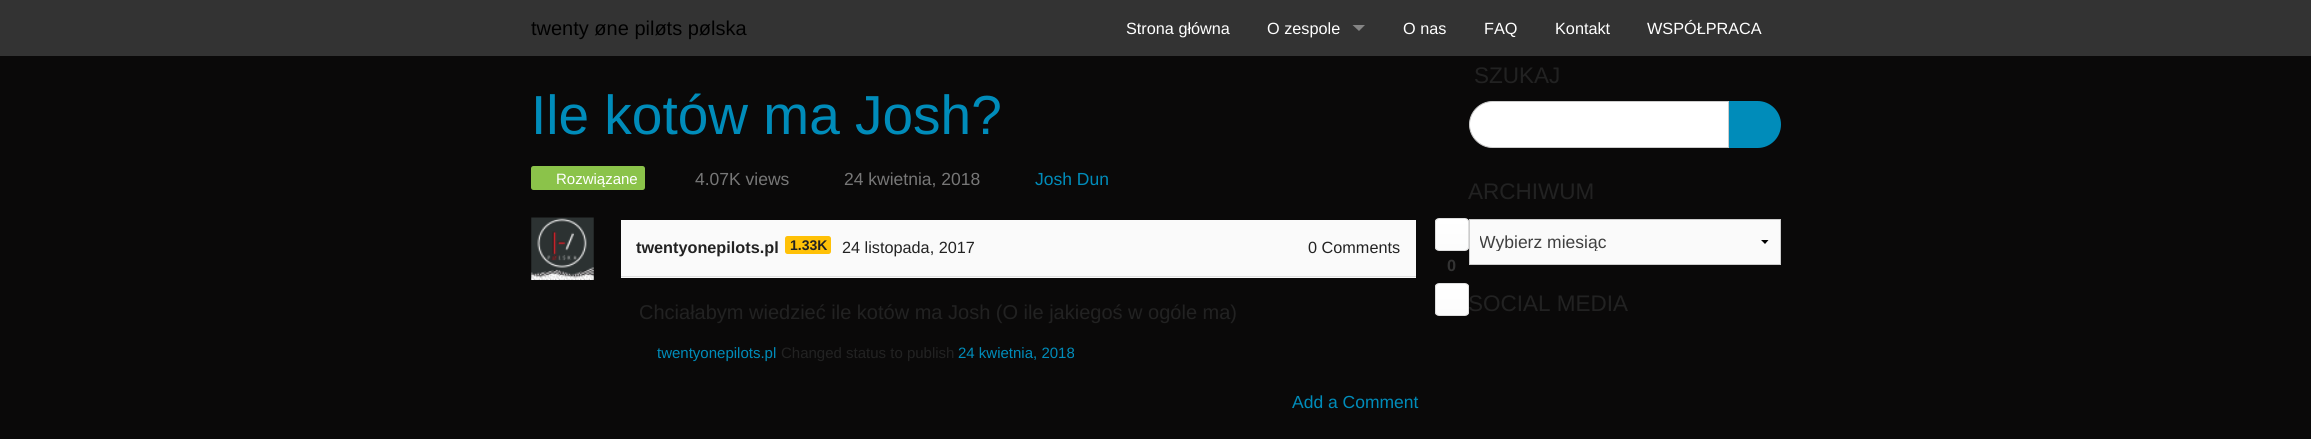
import math
import cairo

surface = cairo.ImageSurface(cairo.Format.RGB24, 2311, 439)
ctx = cairo.Context(surface)
options = cairo.FontOptions()
options.set_hint_metrics(cairo.HintMetrics.OFF)
options.set_hint_style(cairo.HintStyle.NONE)
ctx.set_font_options(options)
ctx.set_miter_limit(4)


def ink(r, g, b):
    ctx.set_source_rgb(r / 255, g / 255, b / 255)


def write(x, y, s, family, size, color, bold=False, italic=False):
    ctx.select_font_face(family, cairo.FontSlant.ITALIC if italic else cairo.FontSlant.NORMAL, cairo.FontWeight.BOLD if bold else cairo.FontWeight.NORMAL)
    ctx.set_font_size(size)
    ink(*color)
    ctx.move_to(x, y)
    ctx.show_text(s)


def block(x, y, w, h, *color):
    ink(*color)
    ctx.rectangle(x, y, w, h)
    ctx.fill()


def round_path(x, y, w, h, r):
    ctx.new_sub_path()
    for i, (u, v) in enumerate([(x + w - r, y + h - r), (x + r, y + h - r), (x + r, y + r), (x + w - r, y + r)]):
        ctx.arc(u, v, r, i * math.pi / 2, (i + 1) * math.pi / 2)
    ctx.close_path()


def paste(path, x, y, w, h):
    ctx.save()
    ctx.set_source_surface(cairo.ImageSurface.create_from_png(path), x, y)
    ctx.rectangle(x, y, w, h)
    ctx.fill()
    ctx.restore()


s1 = dict(family="Liberation Sans", size=20, color=(0, 0, 0))
s2 = dict(family="Liberation Sans", size=16.25, color=(255, 255, 255))
s3 = dict(family="Liberation Sans", size=55, color=(0, 140, 186))
s4 = dict(family="Liberation Sans", size=15, color=(255, 255, 255))
s5 = dict(family="Liberation Sans", size=17.5, color=(119, 119, 119))
s6 = dict(family="Liberation Sans", size=17.5, color=(0, 140, 186))
s7 = dict(family="Liberation Sans", size=16.25, color=(34, 34, 34), bold=True)
s8 = dict(family="Liberation Sans", size=14, color=(34, 34, 34), bold=True)
s9 = dict(family="Liberation Sans", size=16.25, color=(34, 34, 34))
s10 = dict(family="Liberation Sans", size=20, color=(34, 34, 34))
s11 = dict(family="Liberation Sans", size=15, color=(0, 140, 186))
s12 = dict(family="Liberation Sans", size=15, color=(34, 34, 34))
s13 = dict(family="Liberation Sans", size=16.25, color=(51, 51, 51), bold=True)
s14 = dict(family="Liberation Sans", size=22.5, color=(34, 34, 34))
s15 = dict(family="Liberation Sans", size=17.5, color=(63, 63, 63))

ink(10, 9, 9)
ctx.paint()
block(0, 0, 2311, 56, 51, 51, 51)
write(531, 35, "twenty øne piløts pølska", **s1)
write(1126, 34, "Strona główna", **s2)
write(1267, 34, "O zespole", **s2)
ink(133, 133, 133)
ctx.new_path()
ctx.move_to(1352.5, 25)
ctx.line_to(1365, 25)
ctx.line_to(1359, 31)
ctx.close_path()
ctx.fill()
write(1403, 34, "O nas", **s2)
write(1484, 34, "FAQ", **s2)
write(1555, 34, "Kontakt", **s2)
write(1647, 34, "WSPÓŁPRACA", **s2)
write(531, 134, "Ile kotów ma Josh?", **s3)
ink(139, 195, 74)
round_path(531, 166, 114, 24, 2.5)
ctx.fill()
write(556, 184, "Rozwiązane", **s4)
write(695, 185, "4.07K views", **s5)
write(844, 185, "24 kwietnia, 2018", **s5)
write(1035, 185, "Josh Dun", **s6)
paste("pic1.png", 531, 217, 63, 63)
block(621, 220, 795, 58, 250, 250, 250)
block(621, 276, 795, 1, 225, 225, 225)
write(636, 253, "twentyonepilots.pl", **s7)
ink(255, 193, 7)
round_path(785, 236, 46, 18, 2.5)
ctx.fill()
write(790, 250, "1.33K", **s8)
write(842, 253, "24 listopada, 2017", **s9)
write(1308, 253, "0 Comments", **s9)
write(639, 319, "Chciałabym wiedzieć ile kotów ma Josh (O ile jakiegoś w ogóle ma)", **s10)
write(657, 358, "twentyonepilots.pl", **s11)
write(781, 358, "Changed status to publish", **s12)
write(958, 358, "24 kwietnia, 2018", **s11)
write(1292, 408, "Add a Comment", **s6)
ctx.save()
round_path(1435, 218, 34, 33, 4)
ctx.clip()
gradient = cairo.LinearGradient(1452, 219, 1452, 250)
gradient.add_color_stop_rgba(0, 1, 1, 1, 1)
gradient.add_color_stop_rgba(1, 0.988, 0.988, 0.988, 1)
ctx.set_source(gradient)
ctx.rectangle(1435, 219, 34, 31)
ctx.fill()
ctx.restore()
round_path(1435.5, 218.5, 33, 32, 3.5)
ink(221, 221, 221)
ctx.set_line_width(1)
ctx.stroke()
write(1447, 271, "0", **s13)
ctx.save()
round_path(1435, 283, 34, 33, 4)
ctx.clip()
gradient = cairo.LinearGradient(1452, 284, 1452, 315)
gradient.add_color_stop_rgba(0, 1, 1, 1, 1)
gradient.add_color_stop_rgba(1, 0.988, 0.988, 0.988, 1)
ctx.set_source(gradient)
ctx.rectangle(1435, 284, 34, 31)
ctx.fill()
ctx.restore()
round_path(1435.5, 283.5, 33, 32, 3.5)
ink(221, 221, 221)
ctx.stroke()
write(1474, 83, "SZUKAJ", **s14)
ink(255, 255, 255)
ctx.new_path()
ctx.move_to(1492.5, 101.5)
ctx.line_to(1728.5, 101.5)
ctx.line_to(1728.5, 147.5)
ctx.line_to(1492.5, 147.5)
ctx.curve_to(1480, 147.5, 1469.5, 137, 1469.5, 124.5)
ctx.curve_to(1469.5, 112, 1480, 101.5, 1492.5, 101.5)
ctx.close_path()
ctx.fill_preserve()
ink(204, 204, 204)
ctx.stroke()
ink(0, 140, 186)
ctx.new_path()
ctx.move_to(1729, 101)
ctx.line_to(1757.5, 101)
ctx.curve_to(1770.5, 101, 1781, 111.5, 1781, 124.5)
ctx.curve_to(1781, 137.5, 1770.5, 148, 1757.5, 148)
ctx.line_to(1729, 148)
ctx.close_path()
ctx.fill()
write(1468, 199, "ARCHIWUM", **s14)
block(1470, 220, 310, 44, 250, 250, 250)
ink(0, 0, 0)
ctx.new_path()
ctx.move_to(1768.5, 240)
ctx.line_to(1765, 244)
ctx.line_to(1761, 240)
ctx.close_path()
ctx.fill()
ctx.rectangle(1469.5, 219.5, 311, 45)
ink(204, 204, 204)
ctx.stroke()
ctx.save()
ctx.rectangle(1480, 231, 290, 20)
ctx.clip()
write(1479, 248, "Wybierz miesiąc", **s15)
ctx.restore()
write(1468, 311, "SOCIAL MEDIA", **s14)
surface.write_to_png("screenshot.png")
